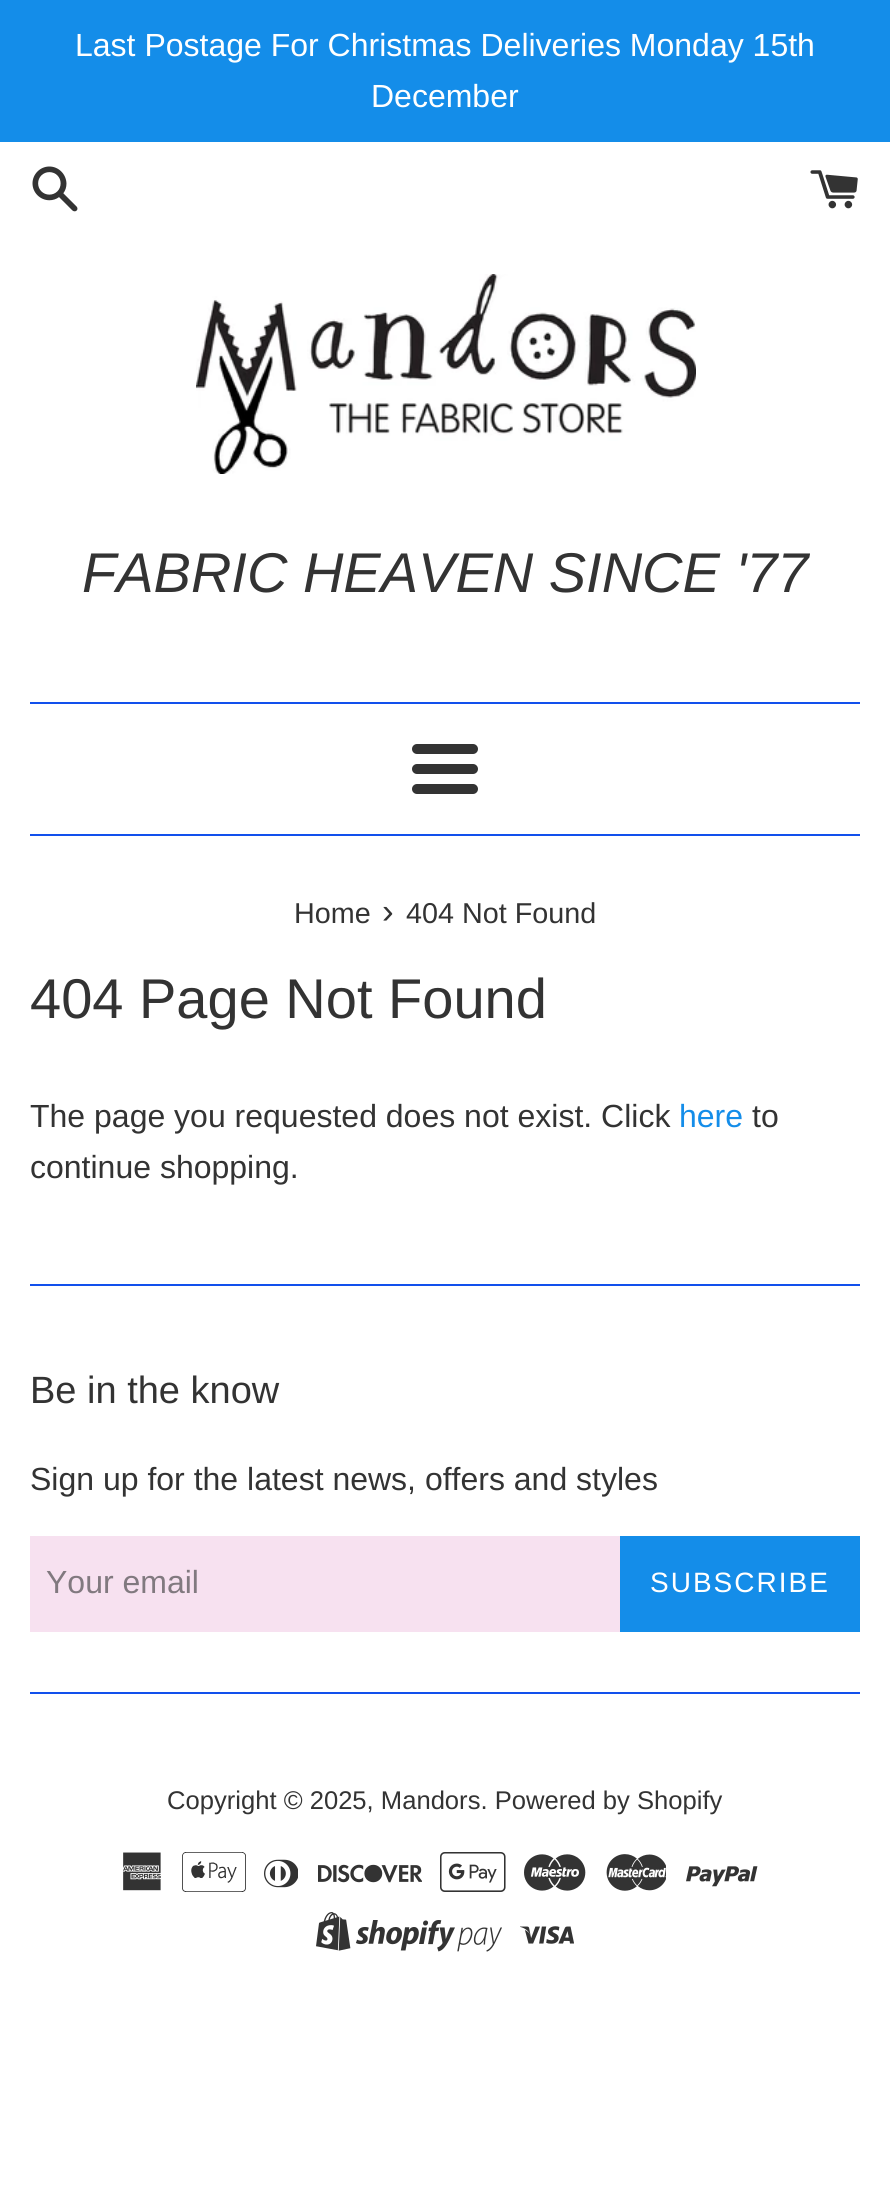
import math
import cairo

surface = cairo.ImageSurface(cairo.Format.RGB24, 890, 2199)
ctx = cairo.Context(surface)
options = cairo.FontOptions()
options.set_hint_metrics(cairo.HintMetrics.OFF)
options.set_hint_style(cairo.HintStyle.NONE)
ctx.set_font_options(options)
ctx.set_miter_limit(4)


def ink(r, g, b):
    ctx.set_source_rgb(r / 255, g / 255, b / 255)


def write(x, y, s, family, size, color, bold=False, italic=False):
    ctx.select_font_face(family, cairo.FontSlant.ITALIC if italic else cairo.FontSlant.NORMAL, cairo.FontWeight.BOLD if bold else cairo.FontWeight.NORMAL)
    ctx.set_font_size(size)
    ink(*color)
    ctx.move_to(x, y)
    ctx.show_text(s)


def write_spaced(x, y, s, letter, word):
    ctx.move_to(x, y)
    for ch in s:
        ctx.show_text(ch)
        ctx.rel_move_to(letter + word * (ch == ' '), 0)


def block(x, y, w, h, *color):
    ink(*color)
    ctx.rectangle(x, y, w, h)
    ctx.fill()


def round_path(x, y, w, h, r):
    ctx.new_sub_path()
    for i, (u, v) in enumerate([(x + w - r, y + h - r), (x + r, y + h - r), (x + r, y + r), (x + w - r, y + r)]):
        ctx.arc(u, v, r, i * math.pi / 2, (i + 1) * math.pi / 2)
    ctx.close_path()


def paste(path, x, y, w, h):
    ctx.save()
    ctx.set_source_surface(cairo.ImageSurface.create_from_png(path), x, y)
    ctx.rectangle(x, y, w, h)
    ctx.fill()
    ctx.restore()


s1 = dict(family="Liberation Sans", size=32, color=(255, 255, 255))
s2 = dict(family="Liberation Sans", size=56, color=(51, 51, 51), italic=True)
s3 = dict(family="Liberation Sans", size=28.75, color=(51, 51, 51))
s4 = dict(family="Liberation Sans", size=35, color=(51, 51, 51))
s5 = dict(family="Liberation Sans", size=56, color=(51, 51, 51))
s6 = dict(family="Liberation Sans", size=32, color=(51, 51, 51))
s7 = dict(family="Liberation Sans", size=32, color=(20, 141, 233))
s8 = dict(family="Liberation Sans", size=38, color=(51, 51, 51))
s9 = dict(family="Liberation Sans", size=32, color=(129, 121, 127))
s10 = dict(family="Liberation Sans", size=25.6, color=(51, 51, 51))

ink(255, 255, 255)
ctx.paint()
block(0, 0, 890, 142, 20, 141, 233)
write(75, 56, "Last Postage For Christmas Deliveries Monday 15th", **s1)
write(371, 107, "December", **s1)
paste("pic1.png", 32, 166, 46, 46)
paste("pic2.png", 810, 170, 48, 39)
paste("pic3.png", 196, 274, 500, 200)
write(82, 592, "FABRIC HEAVEN SINCE '77", **s2)
block(30, 702, 830, 2, 18, 80, 236)
ink(51, 51, 51)
round_path(412, 744, 66, 10, 5)
ctx.fill()
round_path(412, 764, 66, 10, 5)
ctx.fill()
round_path(412, 784, 66, 10, 5)
ctx.fill()
block(30, 834, 830, 2, 18, 80, 236)
write(294, 923, "Home", **s3)
write(382, 923, "›", **s4)
write(406, 923, "404 Not Found", **s3)
write(30, 1018, "404 Page Not Found", **s5)
write(30, 1127, "The page you requested does not exist. Click", **s6)
write(679, 1127, "here", **s7)
write(752, 1127, "to", **s6)
write(30, 1178, "continue shopping.", **s6)
block(30, 1284, 830, 2, 18, 80, 236)
write(30, 1403, "Be in the know", **s8)
write(30, 1490, "Sign up for the latest news, offers and styles", **s6)
block(30, 1536, 590, 96, 247, 225, 240)
write(46, 1593, "Your email", **s9)
block(620, 1536, 240, 96, 20, 141, 233)
ctx.set_font_size(28)
ink(255, 255, 255)
write_spaced(650, 1592, "SUBSCRIBE", 2, 0)
block(30, 1692, 830, 2, 18, 80, 236)
write(167, 1809, "Copyright © 2025, Mandors. Powered by Shopify", **s10)
paste("pic4.png", 123, 1852, 38, 39)
paste("pic5.png", 182, 1852, 64, 40)
paste("pic6.png", 264, 1859, 34, 29)
paste("pic7.png", 318, 1864, 104, 19)
paste("pic8.png", 440, 1852, 66, 40)
paste("pic9.png", 524, 1854, 62, 37)
paste("pic10.png", 606, 1854, 60, 37)
paste("pic11.png", 686, 1866, 72, 21)
paste("pic12.png", 316, 1912, 186, 40)
paste("pic13.png", 520, 1926, 54, 18)
surface.write_to_png("screenshot.png")
